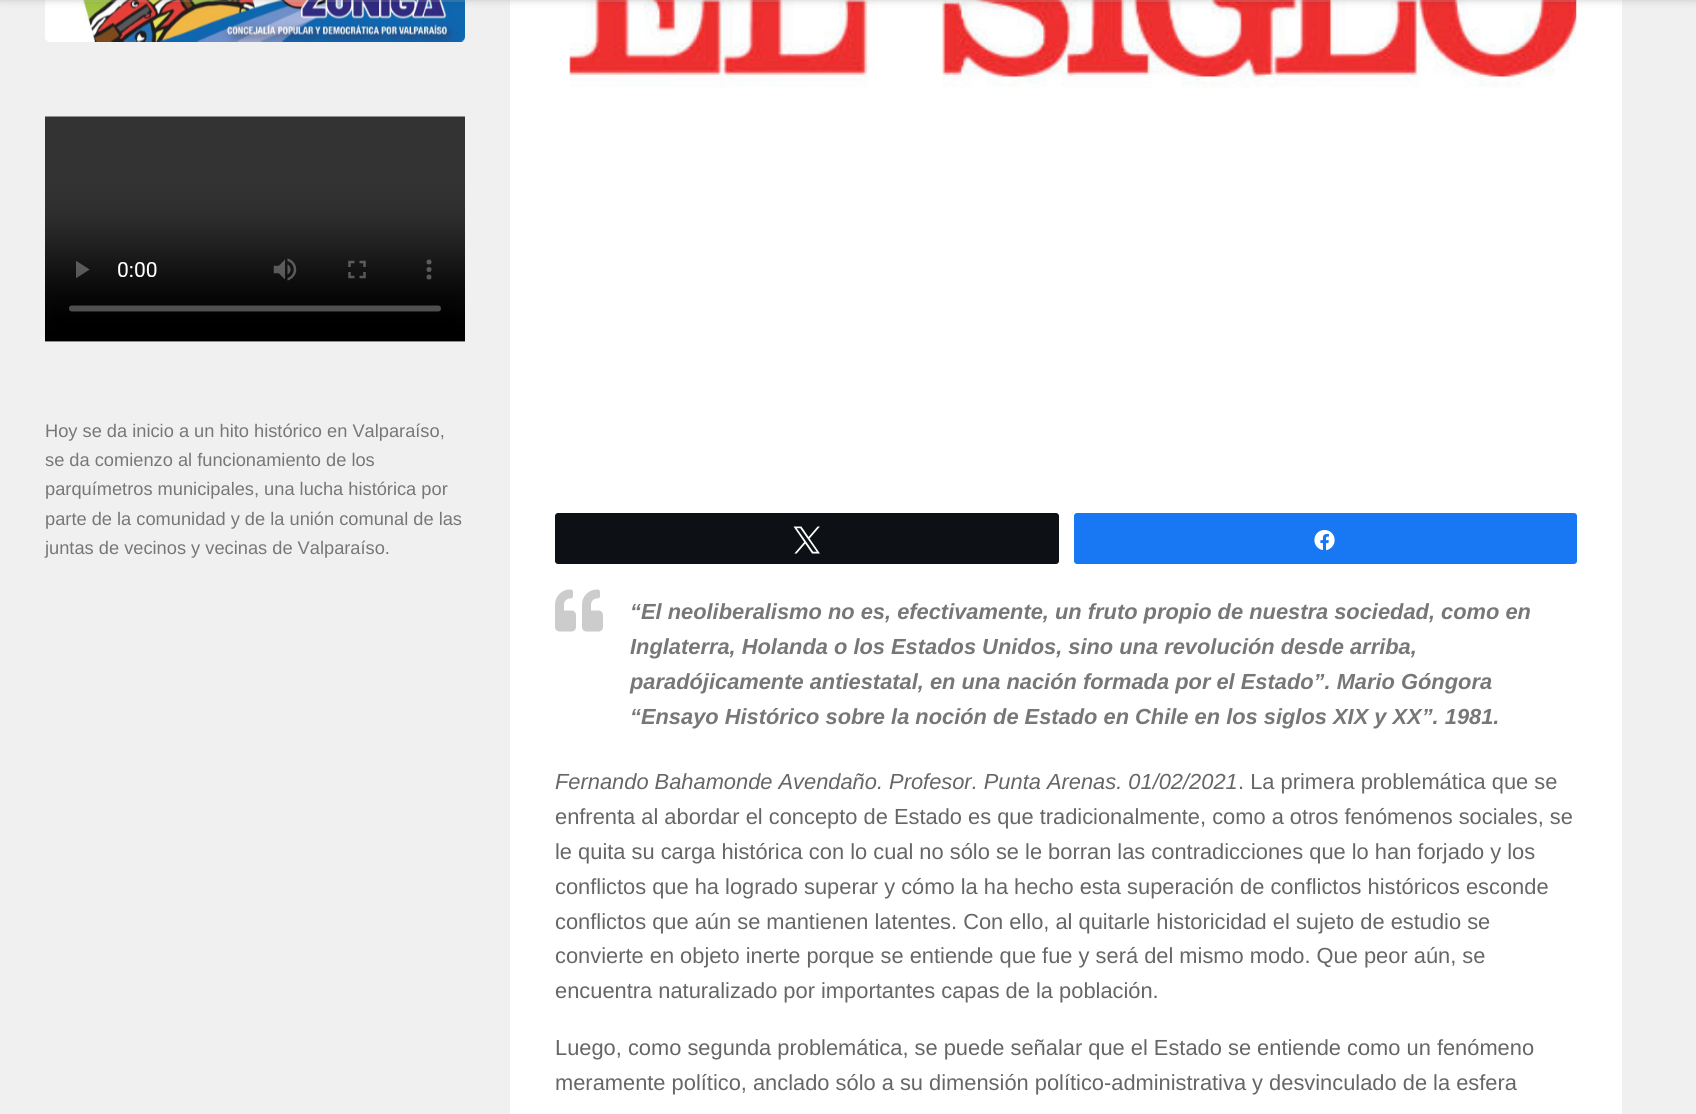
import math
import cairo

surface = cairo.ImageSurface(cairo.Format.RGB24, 1696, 1114)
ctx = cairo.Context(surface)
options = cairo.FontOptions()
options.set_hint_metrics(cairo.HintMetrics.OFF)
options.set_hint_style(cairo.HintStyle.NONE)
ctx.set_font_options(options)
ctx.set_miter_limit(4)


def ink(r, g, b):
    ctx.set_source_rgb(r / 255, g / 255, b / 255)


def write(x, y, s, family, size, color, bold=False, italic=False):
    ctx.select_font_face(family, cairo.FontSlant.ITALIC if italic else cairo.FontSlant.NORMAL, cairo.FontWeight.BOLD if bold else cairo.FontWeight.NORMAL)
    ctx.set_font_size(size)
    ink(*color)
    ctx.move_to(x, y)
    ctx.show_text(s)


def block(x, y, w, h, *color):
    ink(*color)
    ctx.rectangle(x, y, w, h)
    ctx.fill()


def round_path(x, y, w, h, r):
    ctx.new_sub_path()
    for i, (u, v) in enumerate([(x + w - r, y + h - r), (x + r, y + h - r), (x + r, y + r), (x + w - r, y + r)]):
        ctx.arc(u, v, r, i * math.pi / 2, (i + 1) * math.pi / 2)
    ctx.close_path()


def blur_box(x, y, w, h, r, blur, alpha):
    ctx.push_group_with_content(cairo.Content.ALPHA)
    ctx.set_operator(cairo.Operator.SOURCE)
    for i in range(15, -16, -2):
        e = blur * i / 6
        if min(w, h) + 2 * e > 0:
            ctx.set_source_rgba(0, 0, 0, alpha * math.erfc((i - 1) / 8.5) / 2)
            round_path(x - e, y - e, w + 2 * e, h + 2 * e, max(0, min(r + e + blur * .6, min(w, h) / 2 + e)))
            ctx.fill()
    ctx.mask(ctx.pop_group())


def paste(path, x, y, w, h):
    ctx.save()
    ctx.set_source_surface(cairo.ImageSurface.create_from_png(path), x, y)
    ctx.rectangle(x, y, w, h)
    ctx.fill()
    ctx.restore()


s1 = dict(family="Liberation Sans", size=18.25, color=(119, 119, 119))
s2 = dict(family="Liberation Sans", size=21.85, color=(119, 119, 119), bold=True, italic=True)
s3 = dict(family="Liberation Sans", size=21.85, color=(102, 102, 102), italic=True)
s4 = dict(family="Liberation Sans", size=21.85, color=(102, 102, 102))

ink(255, 255, 255)
ctx.paint()
block(0, 0, 510, 1114, 240, 240, 240)
block(1622, 0, 74, 1114, 240, 240, 240)
paste("pic1.png", 45, 0, 420, 42)
paste("pic3.png", 569, 0, 1008, 88)
ctx.set_source_rgba(1, 1, 1, 0.15)
ctx.new_path()
ctx.move_to(0, 0)
ctx.line_to(0, 2)
ctx.line_to(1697, 2)
ctx.line_to(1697, -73)
ctx.line_to(1696, -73)
ctx.line_to(1696, 0)
ctx.close_path()
ctx.fill()
ink(0, 0, 0)
blur_box(0, -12, 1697, 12, 0, 4, 0.2)
paste("pic2.png", 45, 116, 420, 226)
write(45, 437, "Hoy se da inicio a un hito histórico en Valparaíso,", **s1)
write(45, 466, "se da comienzo al funcionamiento de los", **s1)
write(45, 495, "parquímetros municipales, una lucha histórica por", **s1)
write(45, 525, "parte de la comunidad y de la unión comunal de las", **s1)
write(45, 554, "juntas de vecinos y vecinas de Valparaíso.", **s1)
ink(13, 16, 20)
round_path(556, 514, 502, 49, 2)
ctx.fill_preserve()
ctx.stroke()
paste("pic4.png", 793, 526, 27, 28)
ink(24, 119, 242)
round_path(1075, 514, 501, 49, 2)
ctx.fill_preserve()
ctx.stroke()
paste("pic5.png", 1314, 530, 21, 21)
paste("pic6.png", 555, 589, 48, 43)
write(630, 619, "“El neoliberalismo no es, efectivamente, un fruto propio de nuestra sociedad, como en", **s2)
write(630, 654, "Inglaterra, Holanda o los Estados Unidos, sino una revolución desde arriba,", **s2)
write(630, 689, "paradójicamente antiestatal, en una nación formada por el Estado”. Mario Góngora", **s2)
write(630, 724, "“Ensayo Histórico sobre la noción de Estado en Chile en los siglos XIX y XX”. 1981.", **s2)
write(555, 789, "Fernando Bahamonde Avendaño. Profesor. Punta Arenas. 01/02/2021", **s3)
write(1238, 789, ". La primera problemática que se", **s4)
write(555, 824, "enfrenta al abordar el concepto de Estado es que tradicionalmente, como a otros fenómenos sociales, se", **s4)
write(555, 859, "le quita su carga histórica con lo cual no sólo se le borran las contradicciones que lo han forjado y los", **s4)
write(555, 894, "conflictos que ha logrado superar y cómo la ha hecho esta superación de conflictos históricos esconde", **s4)
write(555, 929, "conflictos que aún se mantienen latentes. Con ello, al quitarle historicidad el sujeto de estudio se", **s4)
write(555, 963, "convierte en objeto inerte porque se entiende que fue y será del mismo modo. Que peor aún, se", **s4)
write(555, 998, "encuentra naturalizado por importantes capas de la población.", **s4)
write(555, 1055, "Luego, como segunda problemática, se puede señalar que el Estado se entiende como un fenómeno", **s4)
write(555, 1090, "meramente político, anclado sólo a su dimensión político-administrativa y desvinculado de la esfera", **s4)
surface.write_to_png("screenshot.png")
